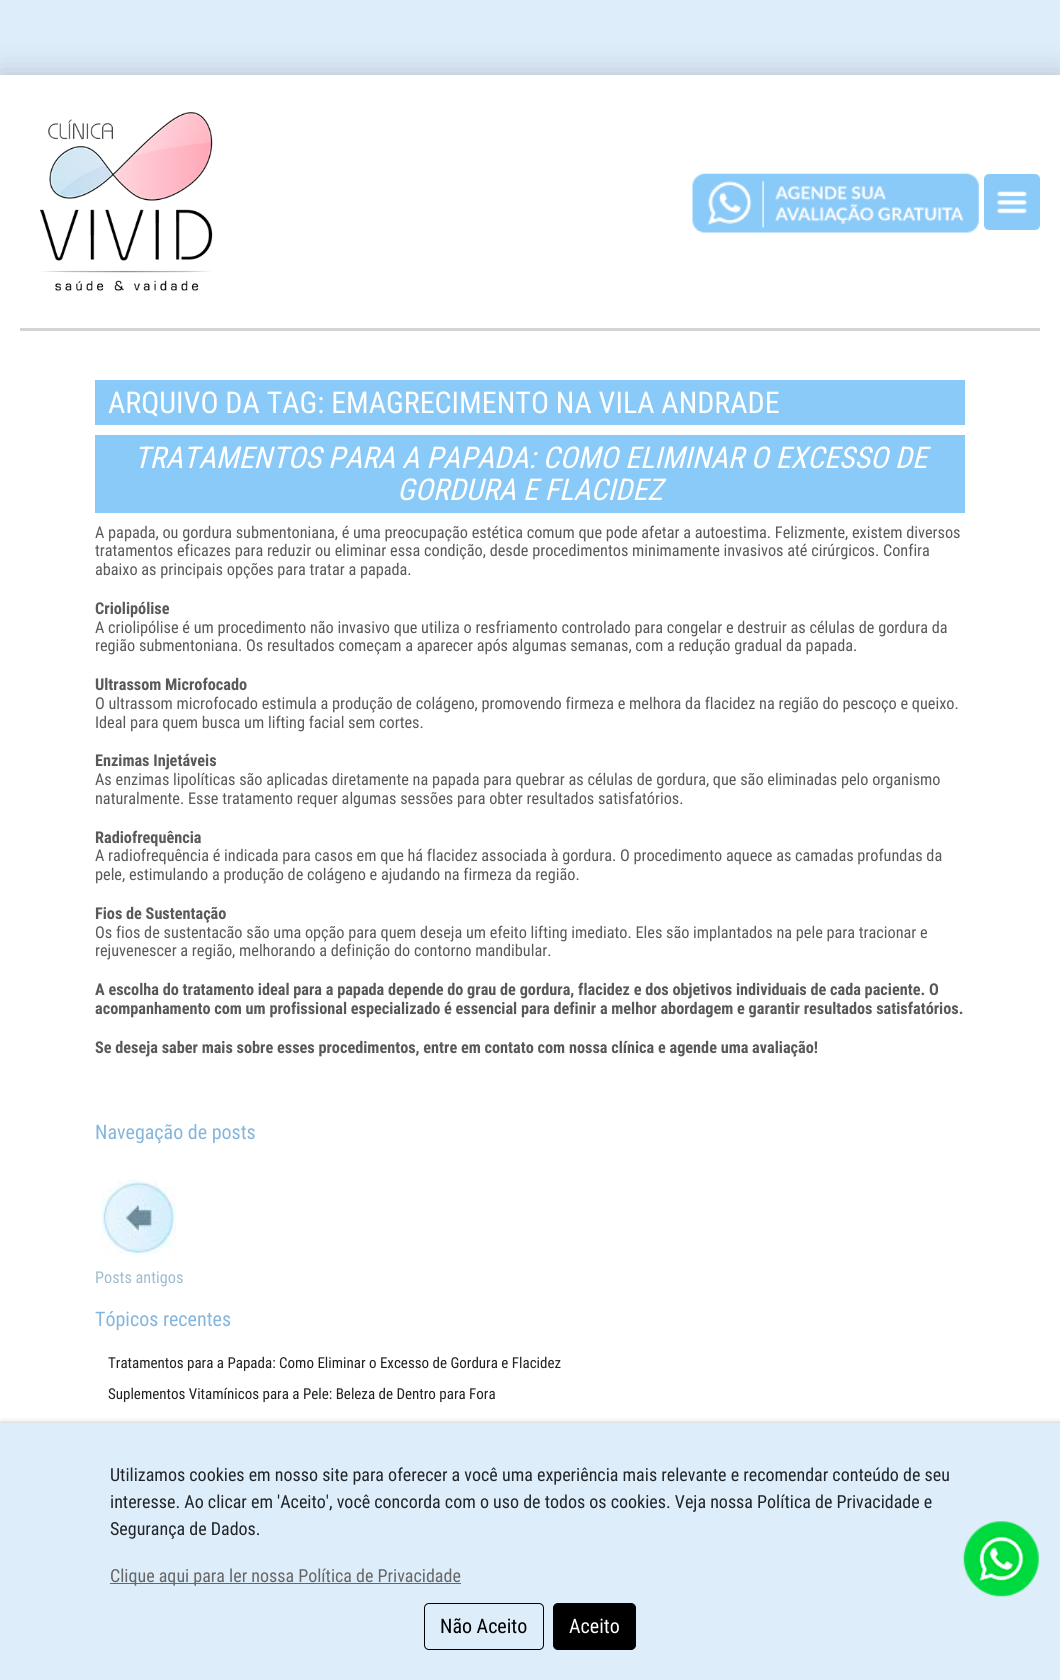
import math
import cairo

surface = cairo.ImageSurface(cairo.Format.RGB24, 1060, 1680)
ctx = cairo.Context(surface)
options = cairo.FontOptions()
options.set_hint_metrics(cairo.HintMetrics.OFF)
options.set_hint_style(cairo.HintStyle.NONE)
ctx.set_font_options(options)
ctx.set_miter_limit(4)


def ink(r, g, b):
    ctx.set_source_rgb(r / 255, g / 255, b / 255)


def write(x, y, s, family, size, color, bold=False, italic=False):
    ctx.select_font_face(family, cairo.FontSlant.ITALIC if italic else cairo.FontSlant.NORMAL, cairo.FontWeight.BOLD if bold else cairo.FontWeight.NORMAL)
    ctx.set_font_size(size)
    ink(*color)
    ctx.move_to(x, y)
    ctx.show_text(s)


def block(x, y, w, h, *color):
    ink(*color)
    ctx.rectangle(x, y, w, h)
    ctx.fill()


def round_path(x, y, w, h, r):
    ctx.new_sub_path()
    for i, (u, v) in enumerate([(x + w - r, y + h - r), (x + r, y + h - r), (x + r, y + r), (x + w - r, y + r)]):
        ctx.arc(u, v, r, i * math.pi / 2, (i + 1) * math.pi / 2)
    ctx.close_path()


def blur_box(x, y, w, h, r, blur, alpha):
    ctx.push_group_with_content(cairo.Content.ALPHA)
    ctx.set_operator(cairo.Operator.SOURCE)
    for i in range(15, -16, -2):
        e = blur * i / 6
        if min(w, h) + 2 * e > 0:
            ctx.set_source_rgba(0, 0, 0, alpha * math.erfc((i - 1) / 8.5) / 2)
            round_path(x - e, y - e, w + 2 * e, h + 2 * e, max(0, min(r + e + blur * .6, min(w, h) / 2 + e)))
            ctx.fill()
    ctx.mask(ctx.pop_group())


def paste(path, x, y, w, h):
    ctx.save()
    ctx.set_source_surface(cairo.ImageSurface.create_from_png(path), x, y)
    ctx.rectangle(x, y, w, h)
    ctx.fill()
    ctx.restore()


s1 = dict(family="Roboto Condensed", size=30, color=(255, 255, 255))
s2 = dict(family="Roboto Condensed", size=30, color=(255, 255, 255), italic=True)
s3 = dict(family="Roboto Condensed", size=16.25, color=(89, 89, 89))
s4 = dict(family="Roboto Condensed", size=16.25, color=(89, 89, 89), bold=True)
s5 = dict(family="Roboto Condensed", size=20, color=(132, 181, 220))
s6 = dict(family="Roboto Condensed", size=16.25, color=(159, 187, 205))
s7 = dict(family="Roboto Condensed", size=15, color=(32, 34, 32))
s8 = dict(family="Roboto Condensed", size=18, color=(33, 37, 41))
s9 = dict(family="Roboto Condensed", size=18, color=(102, 102, 102))
s10 = dict(family="Roboto Condensed", size=20, color=(0, 0, 0))
s11 = dict(family="Roboto Condensed", size=20, color=(255, 255, 255))

ink(255, 255, 255)
ctx.paint()
paste("pic1.png", 0, 0, 1060, 75)
ink(0, 0, 0)
blur_box(0, 75, 1060, 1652, 0, 15.5, 0.2)
block(0, 75, 1060, 1348, 255, 255, 255)
block(20, 328, 1020, 3, 211, 212, 214)
paste("pic2.png", 40, 112, 173, 179)
paste("pic3.png", 692, 173, 287, 60)
ink(138, 202, 248)
round_path(984, 174, 56, 56, 5)
ctx.fill()
paste("pic4.png", 997, 191, 30, 23)
block(95, 380, 870, 45, 138, 202, 248)
write(108, 413, "ARQUIVO DA TAG: EMAGRECIMENTO NA VILA ANDRADE", **s1)
block(95, 435, 870, 78, 138, 202, 248)
write(134, 468, "TRATAMENTOS PARA A PAPADA: COMO ELIMINAR O EXCESSO DE", **s2)
write(397, 500, "GORDURA E FLACIDEZ", **s2)
write(95, 538, "A papada, ou gordura submentoniana, é uma preocupação estética comum que pode afetar a autoestima. Felizmente, existem diversos", **s3)
write(95, 556, "tratamentos eficazes para reduzir ou eliminar essa condição, desde procedimentos minimamente invasivos até cirúrgicos. Confira", **s3)
write(95, 575, "abaixo as principais opções para tratar a papada.", **s3)
write(95, 614, "Criolipólise", **s4)
write(95, 633, "A criolipólise é um procedimento não invasivo que utiliza o resfriamento controlado para congelar e destruir as células de gordura da", **s3)
write(95, 651, "região submentoniana. Os resultados começam a aparecer após algumas semanas, com a redução gradual da papada.", **s3)
write(95, 690, "Ultrassom Microfocado", **s4)
write(95, 709, "O ultrassom microfocado estimula a produção de colágeno, promovendo firmeza e melhora da flacidez na região do pescoço e queixo.", **s3)
write(95, 728, "Ideal para quem busca um lifting facial sem cortes.", **s3)
write(95, 766, "Enzimas Injetáveis", **s4)
write(95, 785, "As enzimas lipolíticas são aplicadas diretamente na papada para quebrar as células de gordura, que são eliminadas pelo organismo", **s3)
write(95, 804, "naturalmente. Esse tratamento requer algumas sessões para obter resultados satisfatórios.", **s3)
write(95, 843, "Radiofrequência", **s4)
write(95, 861, "A radiofrequência é indicada para casos em que há flacidez associada à gordura. O procedimento aquece as camadas profundas da", **s3)
write(95, 880, "pele, estimulando a produção de colágeno e ajudando na firmeza da região.", **s3)
write(95, 919, "Fios de Sustentação", **s4)
write(95, 938, "Os fios de sustentacão são uma opção para quem deseja um efeito lifting imediato. Eles são implantados na pele para tracionar e", **s3)
write(95, 956, "rejuvenescer a região, melhorando a definição do contorno mandibular.", **s3)
write(95, 995, "A escolha do tratamento ideal para a papada depende do grau de gordura, flacidez e dos objetivos individuais de cada paciente. O", **s4)
write(95, 1014, "acompanhamento com um profissional especializado é essencial para definir a melhor abordagem e garantir resultados satisfatórios.", **s4)
write(95, 1053, "Se deseja saber mais sobre esses procedimentos, entre em contato com nossa clínica e agende uma avaliação!", **s4)
write(95, 1139, "Navegação de posts", **s5)
paste("pic5.png", 101, 1180, 75, 75)
write(95, 1283, "Posts antigos", **s6)
write(95, 1326, "Tópicos recentes", **s5)
write(108, 1368, "Tratamentos para a Papada: Como Eliminar o Excesso de Gordura e Flacidez", **s7)
write(108, 1399, "Suplementos Vitamínicos para a Pele: Beleza de Dentro para Fora", **s7)
ink(153, 153, 153)
blur_box(1, 1424, 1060, 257, 0, 3, 1)
block(0, 1423, 1060, 257, 221, 237, 250)
write(110, 1481, "Utilizamos cookies em nosso site para oferecer a você uma experiência mais relevante e recomendar conteúdo de seu", **s8)
write(110, 1508, "interesse. Ao clicar em 'Aceito', você concorda com o uso de todos os cookies. Veja nossa Política de Privacidade e", **s8)
write(110, 1535, "Segurança de Dados.", **s8)
block(110, 1583, 351, 1, 102, 102, 102)
write(110, 1582, "Clique aqui para ler nossa Política de Privacidade", **s9)
round_path(424.5, 1603.5, 119, 46, 4.5)
ink(0, 0, 0)
ctx.set_line_width(1)
ctx.stroke()
write(440, 1633, "Não Aceito", **s10)
round_path(553.5, 1603.5, 82, 46, 4.5)
ctx.fill_preserve()
ctx.stroke()
write(569, 1633, "Aceito", **s11)
paste("pic6.png", 963, 1521, 76, 76)
surface.write_to_png("screenshot.png")
